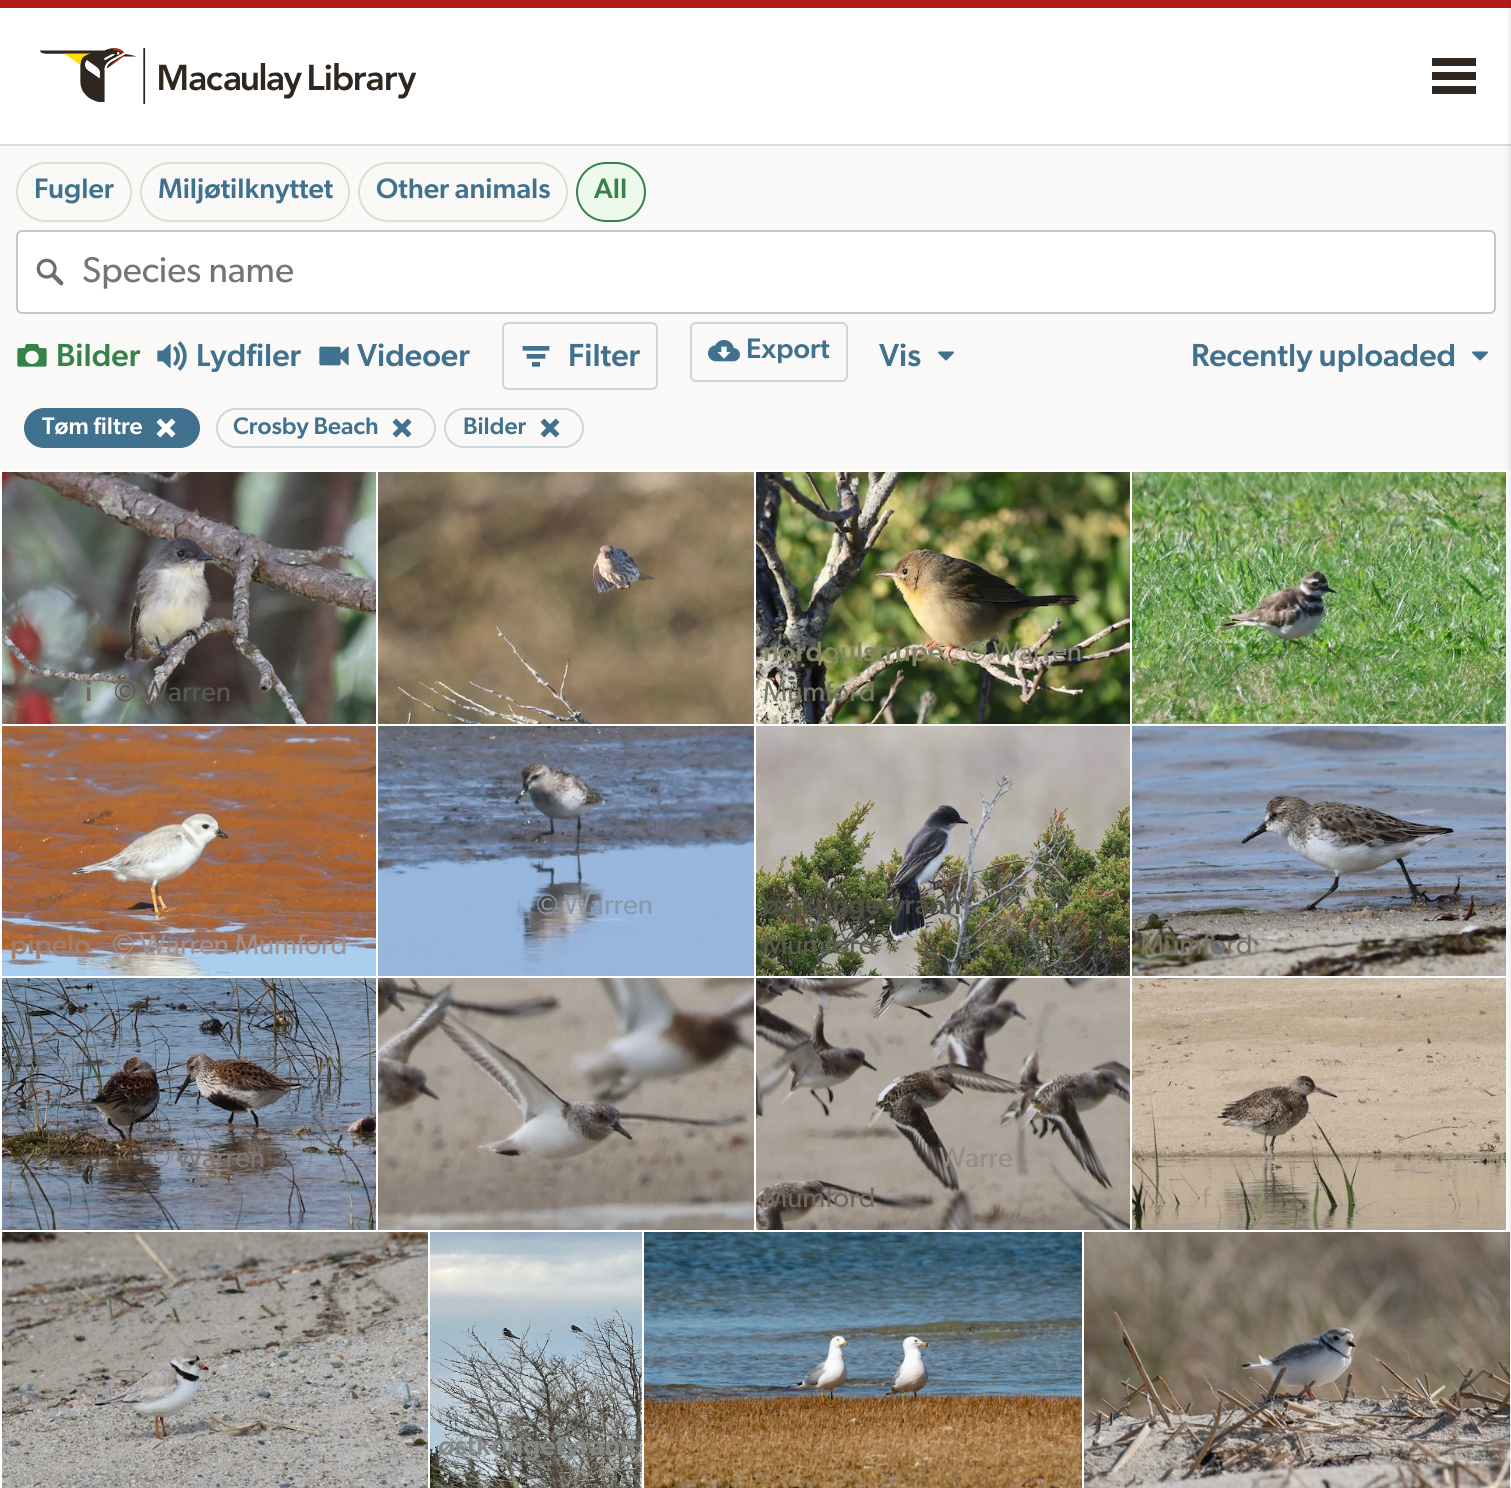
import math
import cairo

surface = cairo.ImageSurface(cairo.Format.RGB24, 1511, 1488)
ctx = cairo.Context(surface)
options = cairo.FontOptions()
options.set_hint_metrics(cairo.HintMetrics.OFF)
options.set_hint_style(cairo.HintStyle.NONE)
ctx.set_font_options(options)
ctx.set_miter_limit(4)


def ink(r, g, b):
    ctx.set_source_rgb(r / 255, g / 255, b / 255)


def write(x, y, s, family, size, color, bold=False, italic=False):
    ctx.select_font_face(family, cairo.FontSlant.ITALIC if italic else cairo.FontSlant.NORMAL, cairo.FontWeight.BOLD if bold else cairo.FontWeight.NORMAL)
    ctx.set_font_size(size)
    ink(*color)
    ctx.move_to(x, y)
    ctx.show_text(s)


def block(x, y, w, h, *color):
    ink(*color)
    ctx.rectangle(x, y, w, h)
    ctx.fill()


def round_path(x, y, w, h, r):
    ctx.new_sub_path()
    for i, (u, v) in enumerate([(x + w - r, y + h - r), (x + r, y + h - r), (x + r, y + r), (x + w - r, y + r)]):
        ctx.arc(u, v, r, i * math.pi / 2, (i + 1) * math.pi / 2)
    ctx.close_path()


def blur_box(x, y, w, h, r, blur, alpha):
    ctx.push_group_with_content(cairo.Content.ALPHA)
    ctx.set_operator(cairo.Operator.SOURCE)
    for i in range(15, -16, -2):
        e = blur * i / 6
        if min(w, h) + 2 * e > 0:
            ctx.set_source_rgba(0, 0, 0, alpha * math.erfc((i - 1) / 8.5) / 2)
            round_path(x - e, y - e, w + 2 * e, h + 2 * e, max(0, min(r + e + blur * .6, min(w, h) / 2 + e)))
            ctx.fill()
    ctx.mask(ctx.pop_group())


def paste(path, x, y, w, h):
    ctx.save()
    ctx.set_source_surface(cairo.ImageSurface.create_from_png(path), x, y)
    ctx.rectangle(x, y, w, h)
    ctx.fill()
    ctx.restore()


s1 = dict(family="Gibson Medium", size=28.25, color=(64, 113, 143))
s2 = dict(family="Gibson Medium", size=28.25, color=(54, 130, 75))
s3 = dict(family="Gibson", size=36, color=(117, 117, 117))
s4 = dict(family="Gibson Medium", size=32, color=(54, 130, 75))
s5 = dict(family="Gibson Medium", size=32, color=(64, 113, 143))
s6 = dict(family="Gibson Medium", size=24, color=(255, 255, 255))
s7 = dict(family="Gibson Medium", size=24, color=(64, 113, 143))
s8 = dict(family="Gibson Medium", size=28.25, color=(117, 102, 97))
s9 = dict(family="Gibson", size=28.25, color=(90, 88, 83))
s10 = dict(family="Gibson Medium", size=28.25, color=(130, 133, 96))
s11 = dict(family="Gibson", size=28.25, color=(134, 132, 109))
s12 = dict(family="Gibson", size=28.25, color=(119, 120, 99))
s13 = dict(family="Gibson Medium", size=28.25, color=(161, 126, 109))
s14 = dict(family="Gibson", size=28.25, color=(159, 145, 145))
s15 = dict(family="Gibson", size=28.25, color=(137, 152, 172))
s16 = dict(family="Gibson Medium", size=28.25, color=(80, 82, 68))
s17 = dict(family="Gibson", size=28.25, color=(90, 95, 76))
s18 = dict(family="Gibson", size=28.25, color=(118, 113, 99))
s19 = dict(family="Gibson", size=28.25, color=(124, 120, 122))
s20 = dict(family="Gibson", size=28.25, color=(148, 139, 131))
s21 = dict(family="Gibson", size=28.25, color=(117, 102, 97))
s22 = dict(family="Gibson", size=28.25, color=(169, 155, 136))
s23 = dict(family="Gibson Medium", size=28.25, color=(132, 136, 135))

ink(255, 255, 255)
ctx.paint()
block(0, 0, 1511, 8, 179, 27, 27)
block(0, 144, 1511, 2, 219, 219, 217)
paste("pic1.png", 40, 48, 376, 56)
ink(46, 38, 31)
ctx.set_fill_rule(cairo.FillRule.EVEN_ODD)
ctx.new_path()
ctx.move_to(1432, 58)
ctx.line_to(1476, 58)
ctx.line_to(1476, 66)
ctx.line_to(1432, 66)
ctx.close_path()
ctx.move_to(1432, 72)
ctx.line_to(1476, 72)
ctx.line_to(1476, 80)
ctx.line_to(1432, 80)
ctx.close_path()
ctx.move_to(1432, 86)
ctx.line_to(1476, 86)
ctx.line_to(1476, 94)
ctx.line_to(1432, 94)
ctx.close_path()
ctx.fill()
block(0, 146, 1511, 324, 250, 249, 247)
paste("pic14.png", 1132, 472, 374, 252)
paste("pic18.png", 1132, 726, 374, 250)
paste("pic22.png", 1132, 978, 374, 252)
paste("pic26.png", 1084, 1232, 426, 256)
ink(0, 0, 0)
blur_box(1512, 4, 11, 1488, 0, 4, 0.2)
round_path(17, 163, 114, 58, 29)
ink(221, 220, 213)
ctx.stroke()
write(34, 198, "Fugler", **s1)
round_path(141, 163, 208, 58, 29)
ink(221, 220, 213)
ctx.stroke()
write(158, 198, "Miljøtilknyttet", **s1)
round_path(359, 163, 208, 58, 29)
ink(221, 220, 213)
ctx.stroke()
write(376, 198, "Other animals", **s1)
ink(236, 249, 235)
round_path(577, 163, 68, 58, 29)
ctx.fill_preserve()
ink(54, 130, 75)
ctx.stroke()
write(594, 198, "All", **s2)
ink(255, 255, 255)
round_path(17, 231, 1478, 82, 5)
ctx.fill_preserve()
ink(200, 199, 192)
ctx.stroke()
paste("pic2.png", 36, 258, 28, 28)
write(82, 282, "Species name", **s3)
paste("pic3.png", 17, 344, 30, 23)
write(56, 366, "Bilder", **s4)
paste("pic4.png", 157, 341, 30, 30)
write(196, 366, "Lydfiler", **s5)
paste("pic5.png", 319, 346, 30, 20)
write(357, 366, "Videoer", **s5)
round_path(503, 323, 154, 66, 5)
ink(204, 215, 221)
ctx.stroke()
paste("pic6.png", 522, 346, 28, 21)
write(568, 366, "Filter", **s5)
round_path(691, 323, 156, 58, 5)
ink(204, 215, 221)
ctx.stroke()
paste("pic7.png", 708, 340, 32, 22)
write(746, 358, "Export", **s1)
write(879, 366, "Vis", **s5)
paste("pic8.png", 938, 351, 16, 10)
write(1191, 366, "Recently uploaded", **s5)
paste("pic8.png", 1472, 351, 16, 10)
round_path(24, 408, 176, 40, 20)
ctx.fill()
write(42, 434, "Tøm filtre", **s6)
paste("pic9.png", 156, 418, 20, 20)
round_path(217, 409, 218, 38, 19)
ink(204, 215, 221)
ctx.stroke()
write(233, 434, "Crosby Beach", **s7)
paste("pic10.png", 392, 418, 20, 20)
round_path(445, 409, 138, 38, 19)
ink(204, 215, 221)
ctx.stroke()
write(463, 434, "Bilder", **s7)
paste("pic10.png", 540, 418, 20, 20)
paste("pic11.png", 2, 472, 374, 252)
write(85, 701, "i", **s8)
write(114, 701, "© Warren", **s9)
paste("pic12.png", 378, 472, 376, 252)
paste("pic13.png", 756, 472, 374, 252)
write(763, 661, "nordgulstrupe", **s10)
write(965, 661, "© Warren", **s11)
write(763, 701, "Mumford", **s12)
paste("pic15.png", 2, 726, 374, 250)
write(10, 954, "pipelo", **s13)
write(112, 954, "© Warren Mumford", **s14)
paste("pic16.png", 378, 726, 376, 250)
write(536, 914, "© Warren", **s15)
paste("pic17.png", 756, 726, 374, 250)
write(763, 914, "østkongetyrann", **s16)
write(763, 954, "Mumford", **s17)
write(1140, 954, "Mumford", **s18)
paste("pic19.png", 2, 978, 374, 252)
write(148, 1167, "© Warren", **s19)
paste("pic20.png", 378, 978, 376, 252)
paste("pic21.png", 756, 978, 374, 252)
write(939, 1167, "Warre", **s20)
write(763, 1207, "Mumford", **s21)
write(1202, 1207, "f", **s22)
paste("pic23.png", 2, 1232, 426, 256)
paste("pic24.png", 430, 1232, 212, 256)
ctx.save()
ctx.set_fill_rule(cairo.FillRule.WINDING)
ctx.rectangle(438, 1430, 196, 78)
ctx.clip()
write(438, 1455, "østkongetyrann", **s23)
ctx.restore()
paste("pic25.png", 644, 1232, 438, 256)
surface.write_to_png("screenshot.png")
